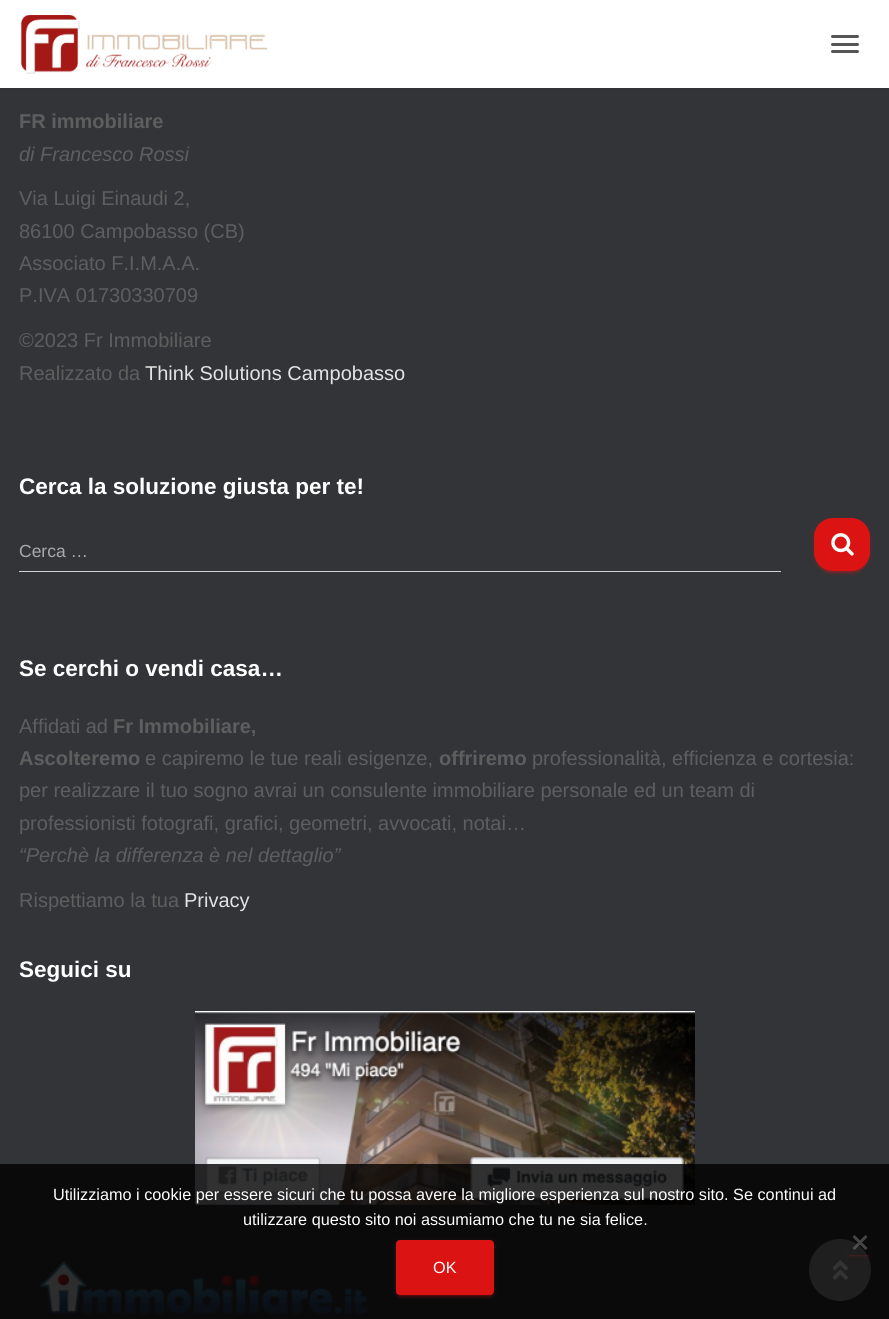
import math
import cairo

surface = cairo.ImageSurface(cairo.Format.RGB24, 889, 1319)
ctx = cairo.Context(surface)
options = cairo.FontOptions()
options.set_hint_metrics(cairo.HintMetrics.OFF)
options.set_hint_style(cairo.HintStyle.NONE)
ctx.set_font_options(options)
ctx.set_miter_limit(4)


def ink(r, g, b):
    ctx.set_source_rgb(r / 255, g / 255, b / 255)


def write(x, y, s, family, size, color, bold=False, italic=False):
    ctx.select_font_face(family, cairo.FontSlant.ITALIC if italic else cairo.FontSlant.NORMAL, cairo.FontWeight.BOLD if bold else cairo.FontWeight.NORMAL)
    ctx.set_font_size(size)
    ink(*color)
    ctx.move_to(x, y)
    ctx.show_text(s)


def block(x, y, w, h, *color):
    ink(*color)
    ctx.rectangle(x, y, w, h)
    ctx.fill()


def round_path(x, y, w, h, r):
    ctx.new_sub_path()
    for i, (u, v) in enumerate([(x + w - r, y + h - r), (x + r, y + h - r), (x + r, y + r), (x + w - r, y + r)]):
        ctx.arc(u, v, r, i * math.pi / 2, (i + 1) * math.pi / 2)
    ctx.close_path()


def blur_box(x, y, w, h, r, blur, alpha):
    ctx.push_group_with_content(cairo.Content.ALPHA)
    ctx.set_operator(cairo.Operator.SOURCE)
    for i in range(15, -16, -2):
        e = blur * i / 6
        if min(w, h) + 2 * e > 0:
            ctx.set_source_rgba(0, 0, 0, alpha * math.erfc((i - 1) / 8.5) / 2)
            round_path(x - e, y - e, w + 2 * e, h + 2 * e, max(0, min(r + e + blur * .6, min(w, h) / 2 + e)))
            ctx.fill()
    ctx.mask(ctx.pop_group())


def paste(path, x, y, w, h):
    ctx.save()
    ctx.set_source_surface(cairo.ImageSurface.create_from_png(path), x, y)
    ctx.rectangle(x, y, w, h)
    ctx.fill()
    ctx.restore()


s1 = dict(family="Liberation Sans", size=20, color=(94, 94, 94), bold=True)
s2 = dict(family="Liberation Sans", size=20, color=(94, 94, 94), italic=True)
s3 = dict(family="Liberation Sans", size=20, color=(94, 94, 94))
s4 = dict(family="Liberation Sans", size=20, color=(226, 227, 227))
s5 = dict(family="Liberation Sans", size=22.5, color=(255, 255, 255), bold=True)
s6 = dict(family="Liberation Sans", size=17.5, color=(170, 170, 170))
s7 = dict(family="Liberation Sans", size=16.25, color=(255, 255, 255))

ink(50, 52, 55)
ctx.paint()
ink(0, 0, 0)
blur_box(8, 9, 875, 72, 0, 6, 0.42)
block(0, 0, 889, 88, 255, 255, 255)
paste("pic1.png", 21, 15, 247, 59)
ink(85, 85, 85)
round_path(831, 35, 28, 3, 1.5)
ctx.fill()
round_path(831, 43, 28, 3, 1.5)
ctx.fill()
round_path(831, 50, 28, 3, 1.5)
ctx.fill()
write(19, 128, "FR immobiliare", **s1)
write(19, 161, "di Francesco Rossi", **s2)
write(19, 205, "Via Luigi Einaudi 2,", **s3)
write(19, 238, "86100 Campobasso (CB)", **s3)
write(19, 270, "Associato F.I.M.A.A.", **s3)
write(19, 302, "P.IVA 01730330709", **s3)
write(19, 347, "©2023 Fr Immobiliare", **s3)
write(19, 380, "Realizzato da", **s3)
write(145, 380, "Think Solutions Campobasso", **s4)
write(19, 494, "Cerca la soluzione giusta per te!", **s5)
write(19, 557, "Cerca …", **s6)
block(19, 571, 762, 1, 210, 210, 210)
ink(219, 19, 19)
blur_box(814, 519, 56, 54, 19, 3, 0.12)
blur_box(816, 524, 52, 49, 16, 0.5, 0.2)
blur_box(814, 520, 56, 54, 19, 1, 0.14)
ink(219, 19, 19)
round_path(814, 518, 56, 53, 19)
ctx.fill()
paste("pic2.png", 831, 533, 23, 23)
write(19, 676, "Se cerchi o vendi casa…", **s5)
write(19, 733, "Affidati ad", **s3)
write(113, 733, "Fr Immobiliare,", **s1)
write(19, 765, "Ascolteremo", **s1)
write(145, 765, "e capiremo le tue reali esigenze,", **s3)
write(439, 765, "offriremo", **s1)
write(532, 765, "professionalità, efficienza e cortesia:", **s3)
write(19, 797, "per realizzare il tuo sogno avrai un consulente immobiliare personale ed un team di", **s3)
write(19, 830, "professionisti fotografi, grafici, geometri, avvocati, notai…", **s3)
write(19, 862, "“Perchè la differenza è nel dettaglio”", **s2)
write(19, 907, "Rispettiamo la tua", **s3)
write(184, 907, "Privacy", **s4)
write(19, 977, "Seguici su", **s5)
paste("pic3.png", 195, 1011, 500, 194)
paste("pic4.png", 40, 1260, 328, 54)
ink(153, 153, 153)
ctx.arc(840, 1270, 31, 0, 2 * math.pi)
ctx.fill()
paste("pic5.png", 833, 1260, 15, 20)
ctx.set_source_rgba(0, 0, 0, 0.8)
ctx.rectangle(0, 1164, 889, 155)
ctx.fill()
write(53, 1200, "Utilizziamo i cookie per essere sicuri che tu possa avere la migliore esperienza sul nostro sito. Se continui ad", **s7)
write(243, 1225, "utilizzare questo sito noi assumiamo che tu ne sia felice.", **s7)
ctx.save()
ctx.rectangle(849, 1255, 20, 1)
ctx.clip()
ink(219, 19, 19)
blur_box(849, 1236, 20, 20, 1, 0.5, 0.1)
ctx.restore()
ctx.save()
ctx.set_fill_rule(cairo.FillRule.EVEN_ODD)
ctx.new_path()
ctx.move_to(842, 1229)
ctx.line_to(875, 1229)
ctx.line_to(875, 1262)
ctx.line_to(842, 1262)
ctx.close_path()
ctx.move_to(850, 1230)
ctx.line_to(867, 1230)
ctx.curve_to(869, 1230, 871, 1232, 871, 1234)
ctx.line_to(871, 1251)
ctx.curve_to(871, 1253, 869, 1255, 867, 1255)
ctx.line_to(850, 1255)
ctx.curve_to(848, 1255, 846, 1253, 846, 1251)
ctx.line_to(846, 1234)
ctx.curve_to(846, 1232, 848, 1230, 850, 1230)
ctx.close_path()
ctx.clip()
ink(219, 19, 19)
blur_box(846, 1233, 25, 25, 4, 1, 0.07)
ctx.restore()
ctx.set_source_rgba(0.502, 0.502, 0.502, 0.5)
ctx.new_path()
ctx.move_to(865.5, 1235)
ctx.line_to(867.5, 1237)
ctx.line_to(854.5, 1250)
ctx.line_to(852.5, 1248)
ctx.close_path()
ctx.fill()
ink(69, 69, 70)
ctx.new_path()
ctx.move_to(852.5, 1237)
ctx.line_to(854.5, 1235)
ctx.line_to(867.5, 1248)
ctx.line_to(865.5, 1250)
ctx.close_path()
ctx.fill()
ink(219, 19, 19)
blur_box(396, 1241, 98, 55, 4, 3, 0.12)
blur_box(399, 1246, 92, 50, 1, 0.5, 0.2)
blur_box(396, 1243, 98, 55, 4, 1, 0.14)
ink(219, 19, 19)
round_path(396, 1240, 98, 55, 4)
ctx.fill()
write(433, 1273, "OK", **s7)
surface.write_to_png("screenshot.png")
